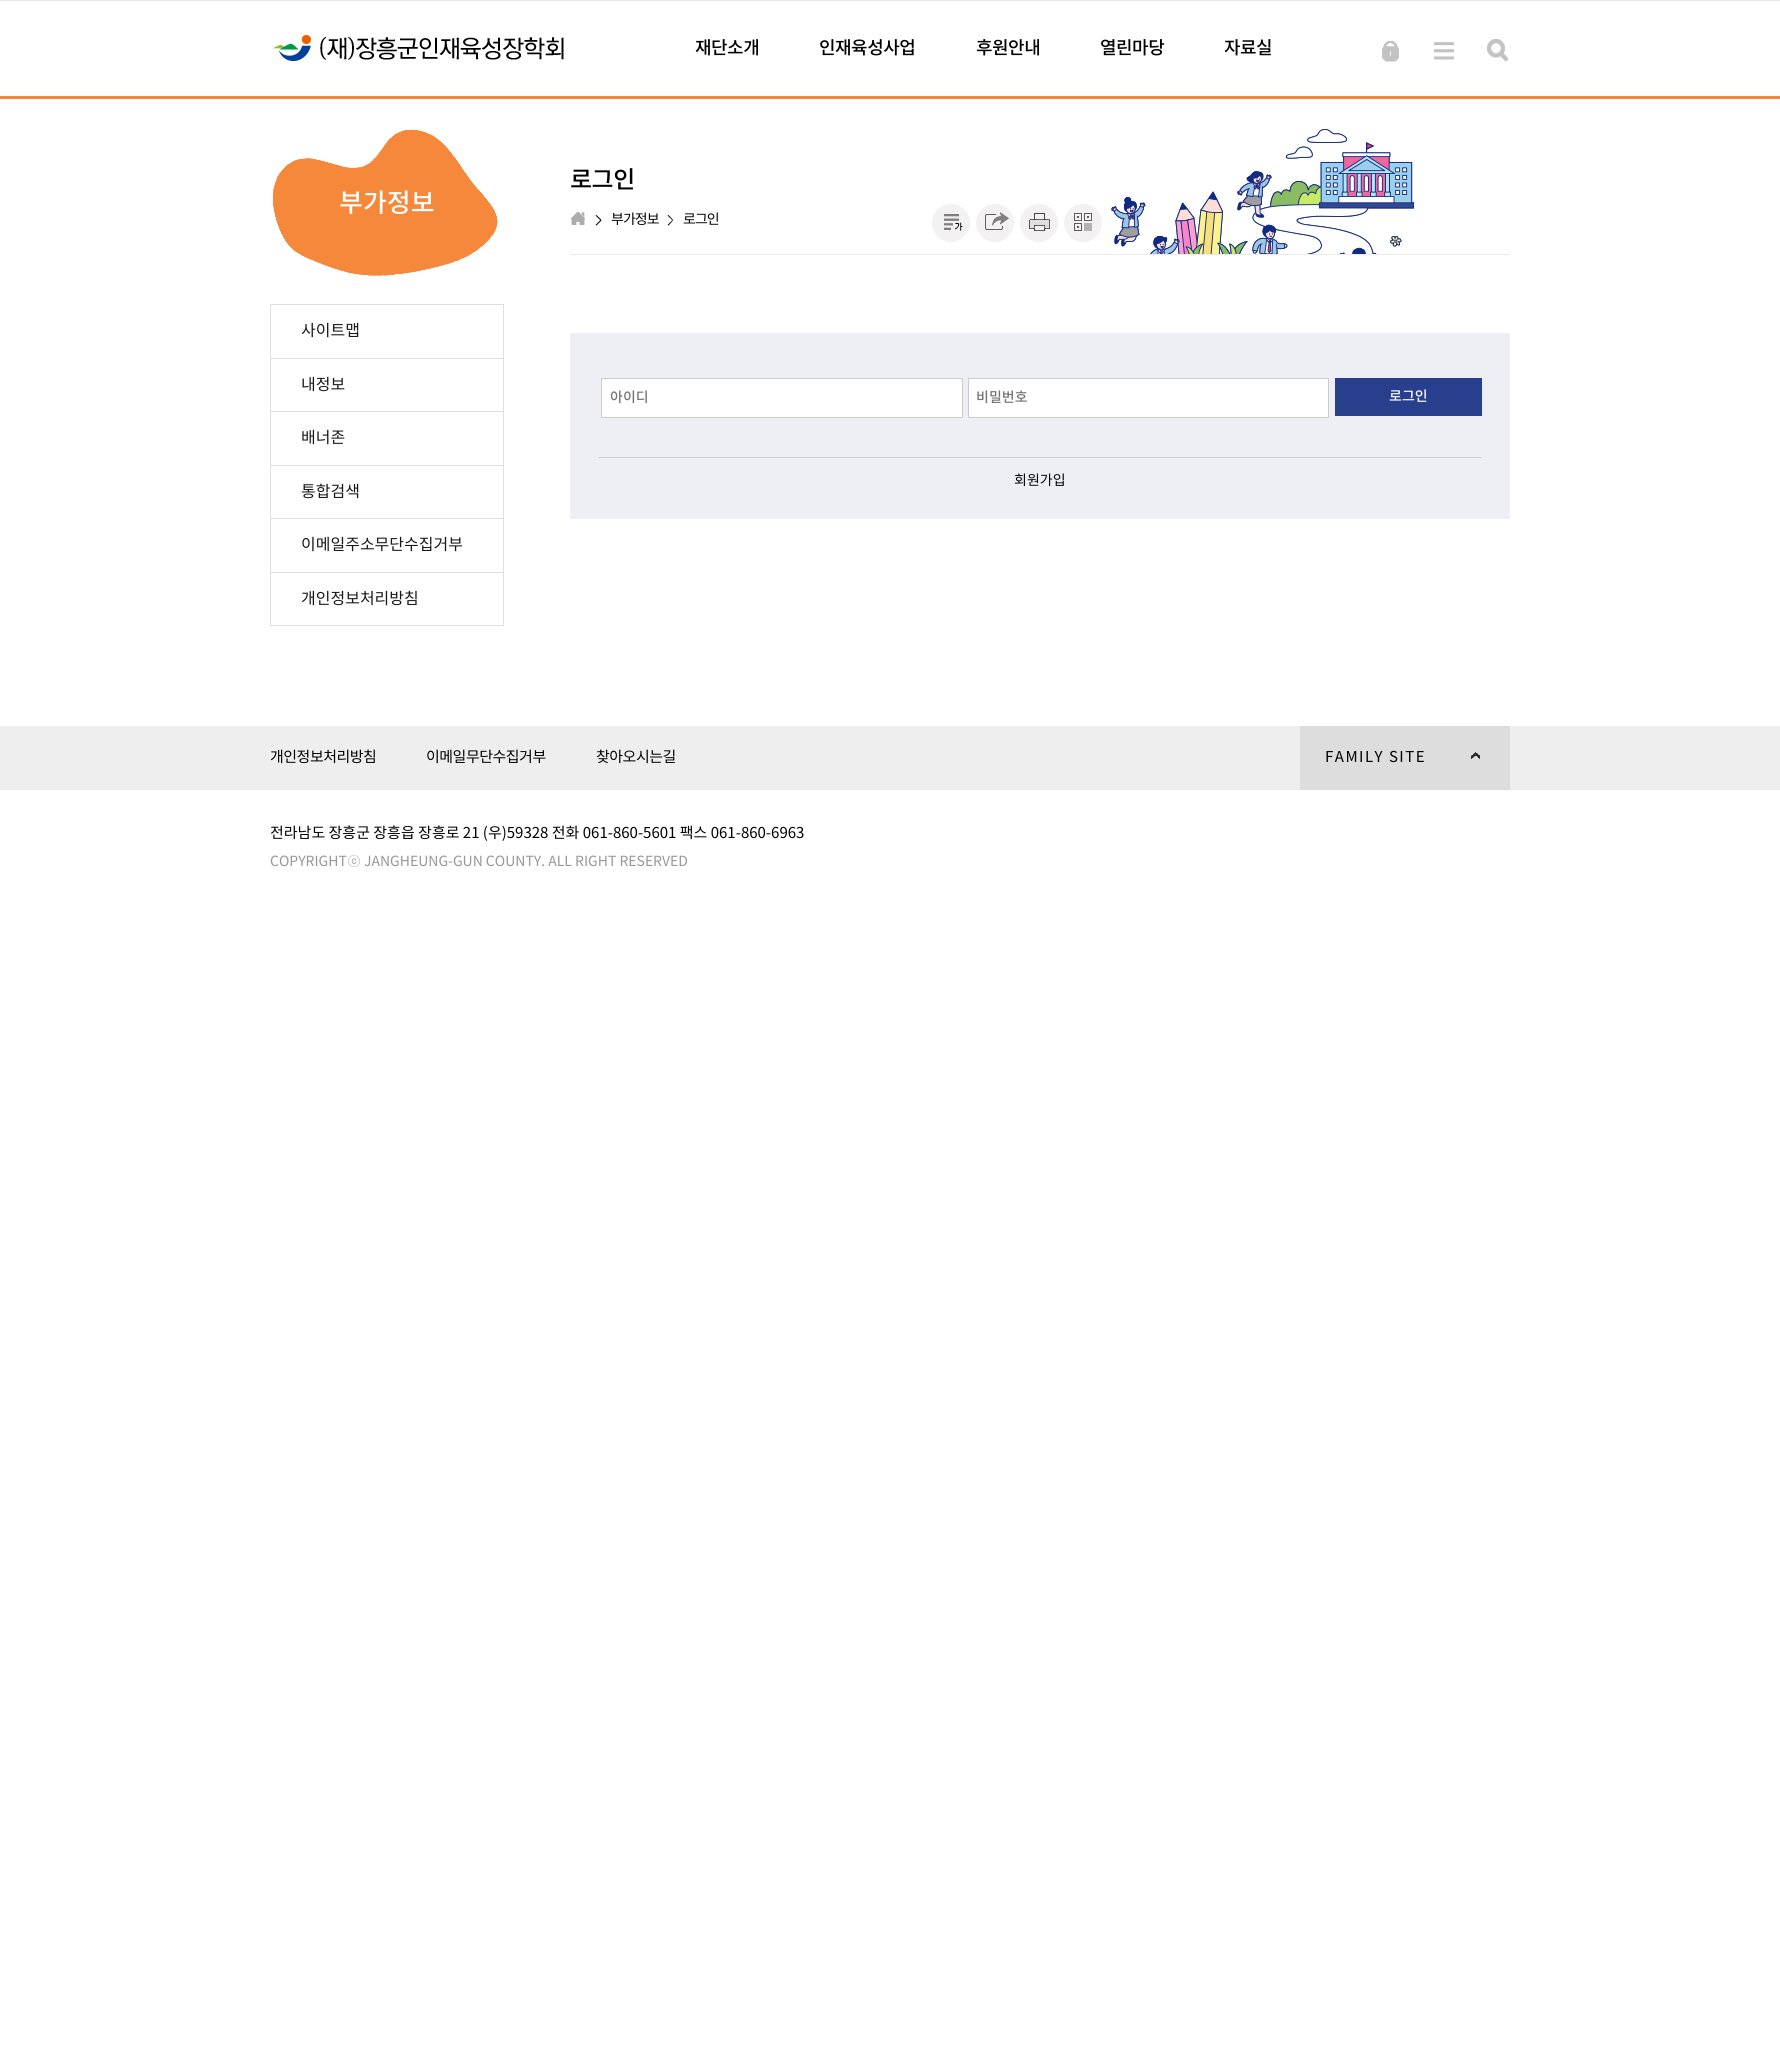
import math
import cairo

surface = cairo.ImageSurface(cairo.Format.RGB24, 1780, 2070)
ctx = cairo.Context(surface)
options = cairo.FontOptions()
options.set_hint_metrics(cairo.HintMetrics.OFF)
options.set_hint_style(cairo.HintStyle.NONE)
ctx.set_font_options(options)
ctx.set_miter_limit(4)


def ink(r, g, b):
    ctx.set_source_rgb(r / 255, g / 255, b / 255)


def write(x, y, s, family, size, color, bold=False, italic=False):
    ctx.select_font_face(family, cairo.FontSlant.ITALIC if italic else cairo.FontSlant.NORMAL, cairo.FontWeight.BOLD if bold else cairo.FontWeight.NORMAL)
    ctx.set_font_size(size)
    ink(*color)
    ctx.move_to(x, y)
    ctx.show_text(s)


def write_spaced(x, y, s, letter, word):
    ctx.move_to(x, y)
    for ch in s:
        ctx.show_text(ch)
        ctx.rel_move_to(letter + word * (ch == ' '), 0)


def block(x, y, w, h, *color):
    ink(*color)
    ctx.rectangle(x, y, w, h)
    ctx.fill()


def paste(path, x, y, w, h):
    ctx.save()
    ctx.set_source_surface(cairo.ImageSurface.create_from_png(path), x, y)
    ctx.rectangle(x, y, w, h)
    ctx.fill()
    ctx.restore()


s1 = dict(family="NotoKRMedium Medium", size=26, color=(255, 255, 255))
s2 = dict(family="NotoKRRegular", size=16, color=(23, 23, 23))
s3 = dict(family="NotoKRMedium Medium", size=14, color=(117, 117, 117))
s4 = dict(family="NotoKRMedium Medium", size=14, color=(255, 255, 255))
s5 = dict(family="NotoKRRegular", size=14, color=(0, 0, 0))
s6 = dict(family="NotoKRRegular", size=15, color=(0, 0, 0))
s7 = dict(family="NotoKRRegular", size=14, color=(151, 151, 151))
s8 = dict(family="Dotum", size=14, color=(151, 151, 151))

ink(255, 255, 255)
ctx.paint()
block(0, 0, 1780, 1, 228, 228, 228)
block(0, 96, 1780, 3, 246, 136, 59)
paste("pic1.png", 273, 35, 291, 26)
ctx.select_font_face("NotoKRMedium Medium")
ctx.set_font_size(18)
ink(0, 0, 0)
write_spaced(695, 54, "재단소개", -0.5, 0)
write_spaced(819, 54, "인재육성사업", -0.5, 0)
write_spaced(976, 54, "후원안내", -0.5, 0)
write_spaced(1100, 54, "열린마당", -0.5, 0)
write_spaced(1224, 54, "자료실", -0.5, 0)
paste("pic2.png", 1382, 41, 17, 21)
paste("pic3.png", 1434, 42, 20, 18)
paste("pic4.png", 1487, 39, 21, 23)
paste("pic5.png", 272, 129, 226, 147)
write(339, 212, "부가정보", **s1)
ctx.rectangle(270.5, 304.5, 233, 321)
ink(223, 223, 223)
ctx.set_line_width(1)
ctx.stroke()
block(271, 358, 232, 1, 223, 223, 223)
write(301, 336, "사이트맵", **s2)
block(271, 411, 232, 1, 223, 223, 223)
write(301, 390, "내정보", **s2)
block(271, 465, 232, 1, 223, 223, 223)
write(301, 443, "배너존", **s2)
block(271, 518, 232, 1, 223, 223, 223)
write(301, 497, "통합검색", **s2)
block(271, 572, 232, 1, 223, 223, 223)
write(301, 550, "이메일주소무단수집거부", **s2)
write(301, 604, "개인정보처리방침", **s2)
paste("pic6.png", 1111, 129, 303, 125)
block(570, 254, 940, 1, 234, 234, 234)
ctx.select_font_face("NotoKRMedium Medium")
ctx.set_font_size(24)
ink(0, 0, 0)
write_spaced(570, 188, "로그인", -0.5, 0)
paste("pic7.png", 571, 212, 14, 13)
ctx.new_path()
ctx.move_to(596.5, 215)
ctx.line_to(601.5, 220)
ctx.line_to(600.5, 220.5)
ctx.line_to(595.5, 215.5)
ctx.close_path()
ctx.fill()
ctx.select_font_face("NotoKRRegular")
ctx.set_font_size(14)
write_spaced(611, 224, "부가정보", -1, 0)
ctx.new_path()
ctx.move_to(595.5, 225)
ctx.line_to(600.5, 220)
ctx.line_to(601.5, 220.5)
ctx.line_to(596.5, 225.5)
ctx.close_path()
ctx.fill()
ctx.new_path()
ctx.move_to(668.5, 215)
ctx.line_to(673, 220)
ctx.line_to(672.5, 220.5)
ctx.line_to(667.5, 215.5)
ctx.close_path()
ctx.fill()
write_spaced(683, 224, "로그인", -1, 0)
ctx.new_path()
ctx.move_to(667.5, 225)
ctx.line_to(672.5, 220)
ctx.line_to(673, 220.5)
ctx.line_to(668.5, 225.5)
ctx.close_path()
ctx.fill()
ink(243, 241, 242)
ctx.arc(951, 223, 19, 0, 2 * math.pi)
ctx.fill()
paste("pic8.png", 944, 214, 19, 17)
ctx.arc(995, 223, 19, 0, 2 * math.pi)
ctx.fill()
paste("pic9.png", 985, 212, 24, 18)
ctx.arc(1039, 223, 19, 0, 2 * math.pi)
ctx.fill()
paste("pic10.png", 1029, 213, 21, 18)
ctx.arc(1083, 223, 19, 0, 2 * math.pi)
ctx.fill()
paste("pic11.png", 1074, 213, 18, 18)
block(570, 333, 940, 186, 237, 239, 245)
ink(255, 255, 255)
ctx.rectangle(601.5, 378.5, 361, 39)
ctx.fill_preserve()
ink(204, 204, 204)
ctx.stroke()
write(610, 402, "아이디", **s3)
ink(255, 255, 255)
ctx.rectangle(968.5, 378.5, 360, 39)
ctx.fill_preserve()
ink(204, 204, 204)
ctx.stroke()
write(976, 402, "비밀번호", **s3)
block(1335, 378, 147, 38, 40, 63, 141)
write(1389, 401, "로그인", **s4)
block(598, 457, 884, 1, 210, 210, 210)
write(1014, 485, "회원가입", **s5)
block(0, 726, 1780, 64, 238, 238, 238)
ctx.set_font_size(15)
ink(0, 0, 0)
write_spaced(270, 762, "개인정보처리방침", -0.5, 0)
write_spaced(426, 762, "이메일무단수집거부", -0.5, 0)
write_spaced(596, 762, "찾아오시는길", -0.5, 0)
block(1300, 726, 210, 64, 221, 221, 221)
ink(0, 0, 0)
write_spaced(1325, 762, "FAMILY SITE", 1.5, 0)
paste("pic12.png", 1471, 752, 9, 7)
write(270, 838, "전라남도 장흥군 장흥읍 장흥로 21 (우)59328 전화 061-860-5601 팩스 061-860-6963", **s6)
write(270, 866, "COPYRIGHT", **s7)
write(347, 866, "ⓒ", **s8)
write(364, 866, "JANGHEUNG-GUN COUNTY. ALL RIGHT RESERVED", **s7)
surface.write_to_png("screenshot.png")
